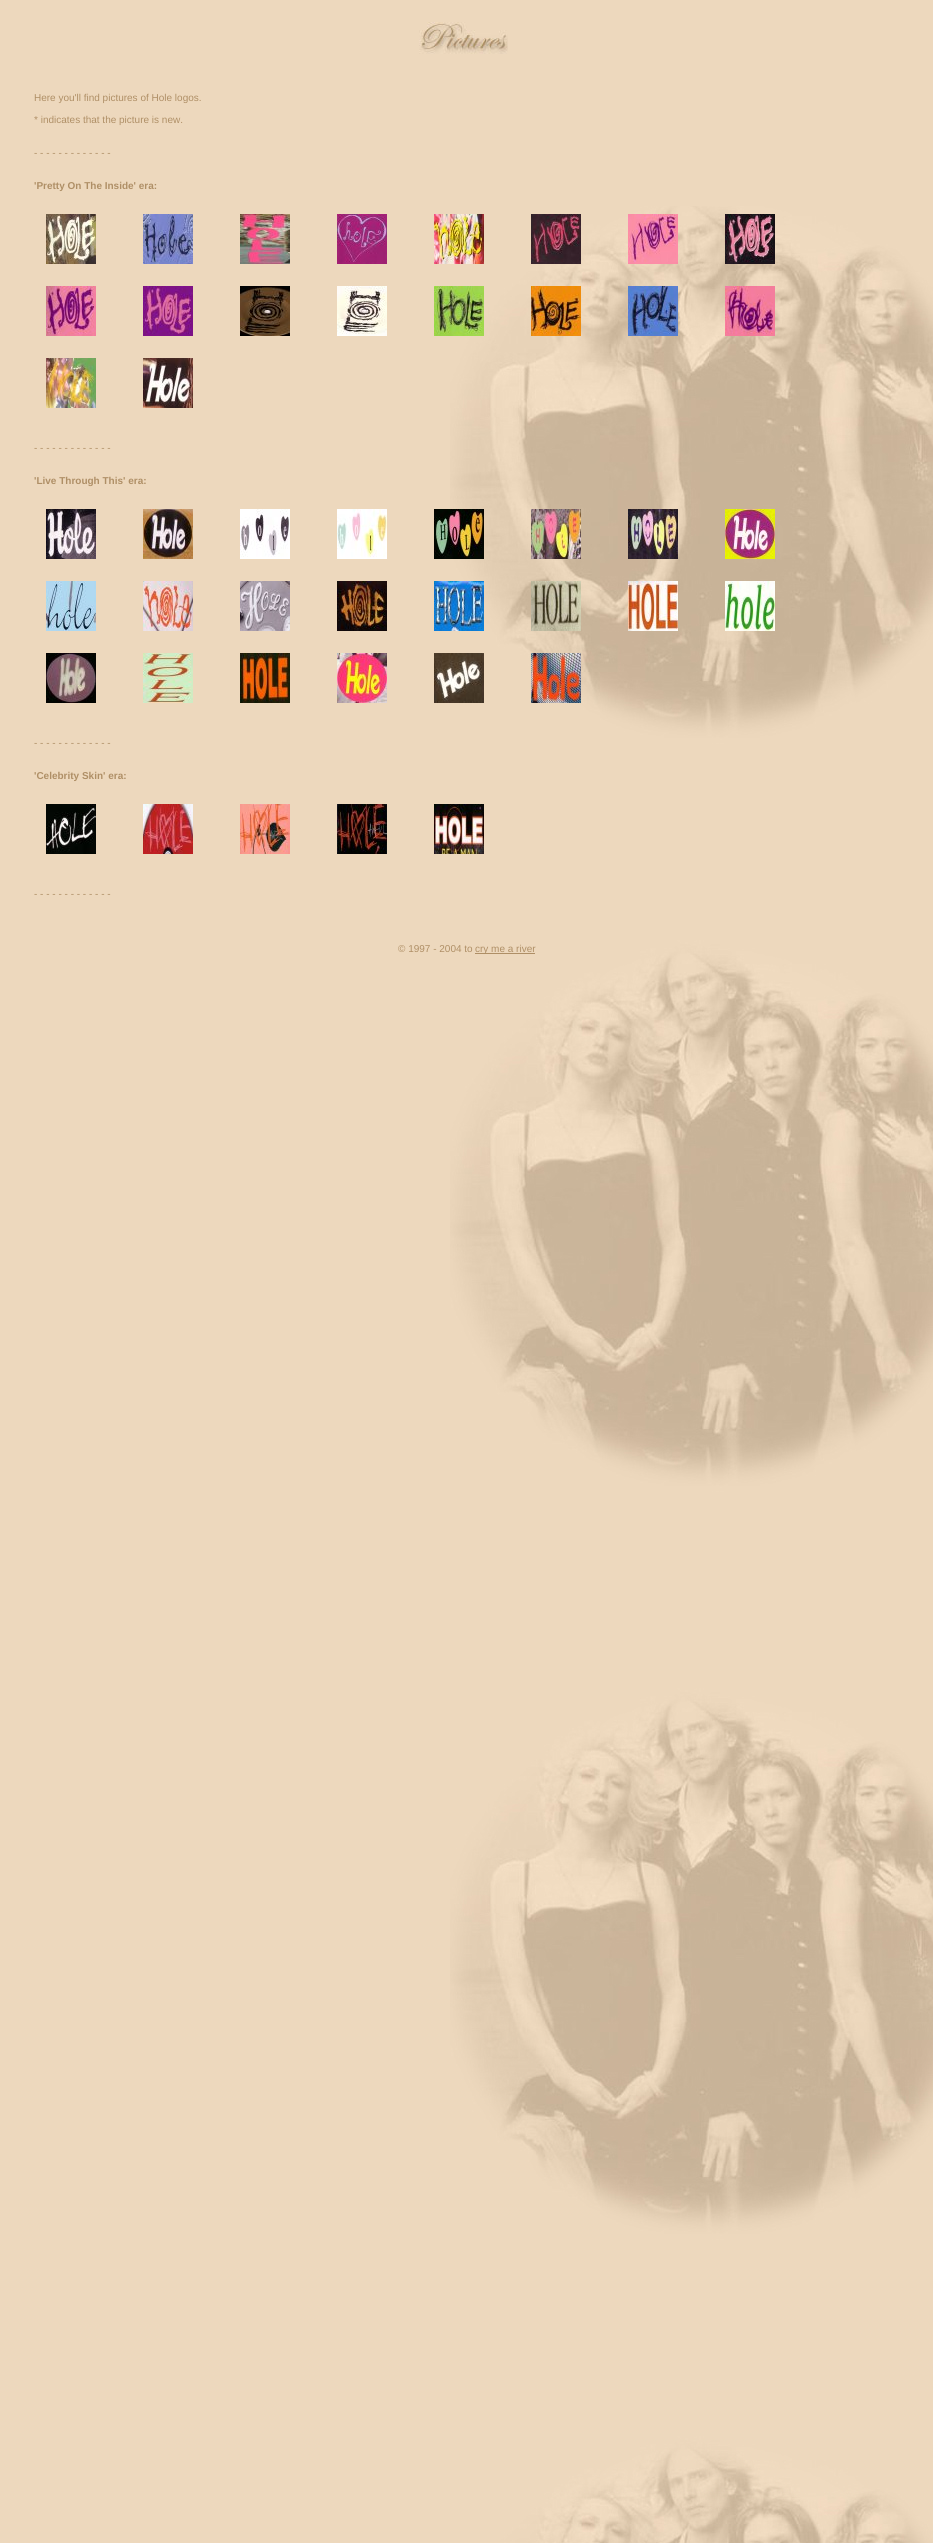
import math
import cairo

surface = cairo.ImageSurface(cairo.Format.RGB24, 933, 2543)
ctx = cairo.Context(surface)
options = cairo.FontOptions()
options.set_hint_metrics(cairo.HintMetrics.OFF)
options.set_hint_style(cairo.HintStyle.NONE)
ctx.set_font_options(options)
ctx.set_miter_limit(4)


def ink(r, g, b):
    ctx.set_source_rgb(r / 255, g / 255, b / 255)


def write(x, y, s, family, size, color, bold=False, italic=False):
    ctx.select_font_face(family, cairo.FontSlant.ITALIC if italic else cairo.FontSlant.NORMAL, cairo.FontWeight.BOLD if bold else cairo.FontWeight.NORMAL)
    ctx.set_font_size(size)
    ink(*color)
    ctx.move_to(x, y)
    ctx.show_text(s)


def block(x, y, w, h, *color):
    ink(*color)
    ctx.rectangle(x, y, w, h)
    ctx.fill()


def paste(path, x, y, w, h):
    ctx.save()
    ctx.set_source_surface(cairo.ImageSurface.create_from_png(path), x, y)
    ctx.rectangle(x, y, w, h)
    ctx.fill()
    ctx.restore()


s1 = dict(family="Liberation Sans", size=10, color=(175, 143, 102))
s2 = dict(family="Liberation Sans", size=10, color=(175, 143, 102), bold=True)

ink(237, 216, 189)
ctx.paint()
paste("pic1.png", 450, 206, 483, 2337)
paste("pic2.png", 419, 22, 89, 32)
write(34, 101, "Here you'll find pictures of Hole logos.", **s1)
write(34, 123, "* indicates that the picture is new.", **s1)
write(34, 156, "- - - - - - - - - - - - -", **s1)
write(34, 189, "'Pretty On The Inside' era:", **s2)
paste("pic3.png", 46, 214, 50, 50)
paste("pic4.png", 143, 214, 50, 50)
paste("pic5.png", 240, 214, 50, 50)
paste("pic6.png", 337, 214, 50, 50)
paste("pic7.png", 434, 214, 50, 50)
paste("pic8.png", 531, 214, 50, 50)
paste("pic9.png", 628, 214, 50, 50)
paste("pic10.png", 725, 214, 50, 50)
paste("pic11.png", 46, 286, 50, 50)
paste("pic12.png", 143, 286, 50, 50)
paste("pic13.png", 240, 286, 50, 50)
paste("pic14.png", 337, 286, 50, 50)
paste("pic15.png", 434, 286, 50, 50)
paste("pic16.png", 531, 286, 50, 50)
paste("pic17.png", 628, 286, 50, 50)
paste("pic18.png", 725, 286, 50, 50)
paste("pic19.png", 46, 358, 50, 50)
paste("pic20.png", 143, 358, 50, 50)
write(34, 451, "- - - - - - - - - - - - -", **s1)
write(34, 484, "'Live Through This' era:", **s2)
paste("pic21.png", 46, 509, 50, 50)
paste("pic22.png", 143, 509, 50, 50)
paste("pic23.png", 240, 509, 50, 50)
paste("pic24.png", 337, 509, 50, 50)
paste("pic25.png", 434, 509, 50, 50)
paste("pic26.png", 531, 509, 50, 50)
paste("pic27.png", 628, 509, 50, 50)
paste("pic28.png", 725, 509, 50, 50)
paste("pic29.png", 46, 581, 50, 50)
paste("pic30.png", 143, 581, 50, 50)
paste("pic31.png", 240, 581, 50, 50)
paste("pic32.png", 337, 581, 50, 50)
paste("pic33.png", 434, 581, 50, 50)
paste("pic34.png", 531, 581, 50, 50)
paste("pic35.png", 628, 581, 50, 50)
paste("pic36.png", 725, 581, 50, 50)
paste("pic37.png", 46, 653, 50, 50)
paste("pic38.png", 143, 653, 50, 50)
paste("pic39.png", 240, 653, 50, 50)
paste("pic40.png", 337, 653, 50, 50)
paste("pic41.png", 434, 653, 50, 50)
paste("pic42.png", 531, 653, 50, 50)
write(34, 746, "- - - - - - - - - - - - -", **s1)
write(34, 779, "'Celebrity Skin' era:", **s2)
paste("pic43.png", 46, 804, 50, 50)
paste("pic44.png", 143, 804, 50, 50)
paste("pic45.png", 240, 804, 50, 50)
paste("pic46.png", 337, 804, 50, 50)
paste("pic47.png", 434, 804, 50, 50)
write(34, 897, "- - - - - - - - - - - - -", **s1)
write(398, 952, "© 1997 - 2004 to", **s1)
block(475, 953, 60, 1, 175, 143, 102)
write(475, 952, "cry me a river", **s1)
surface.write_to_png("screenshot.png")
